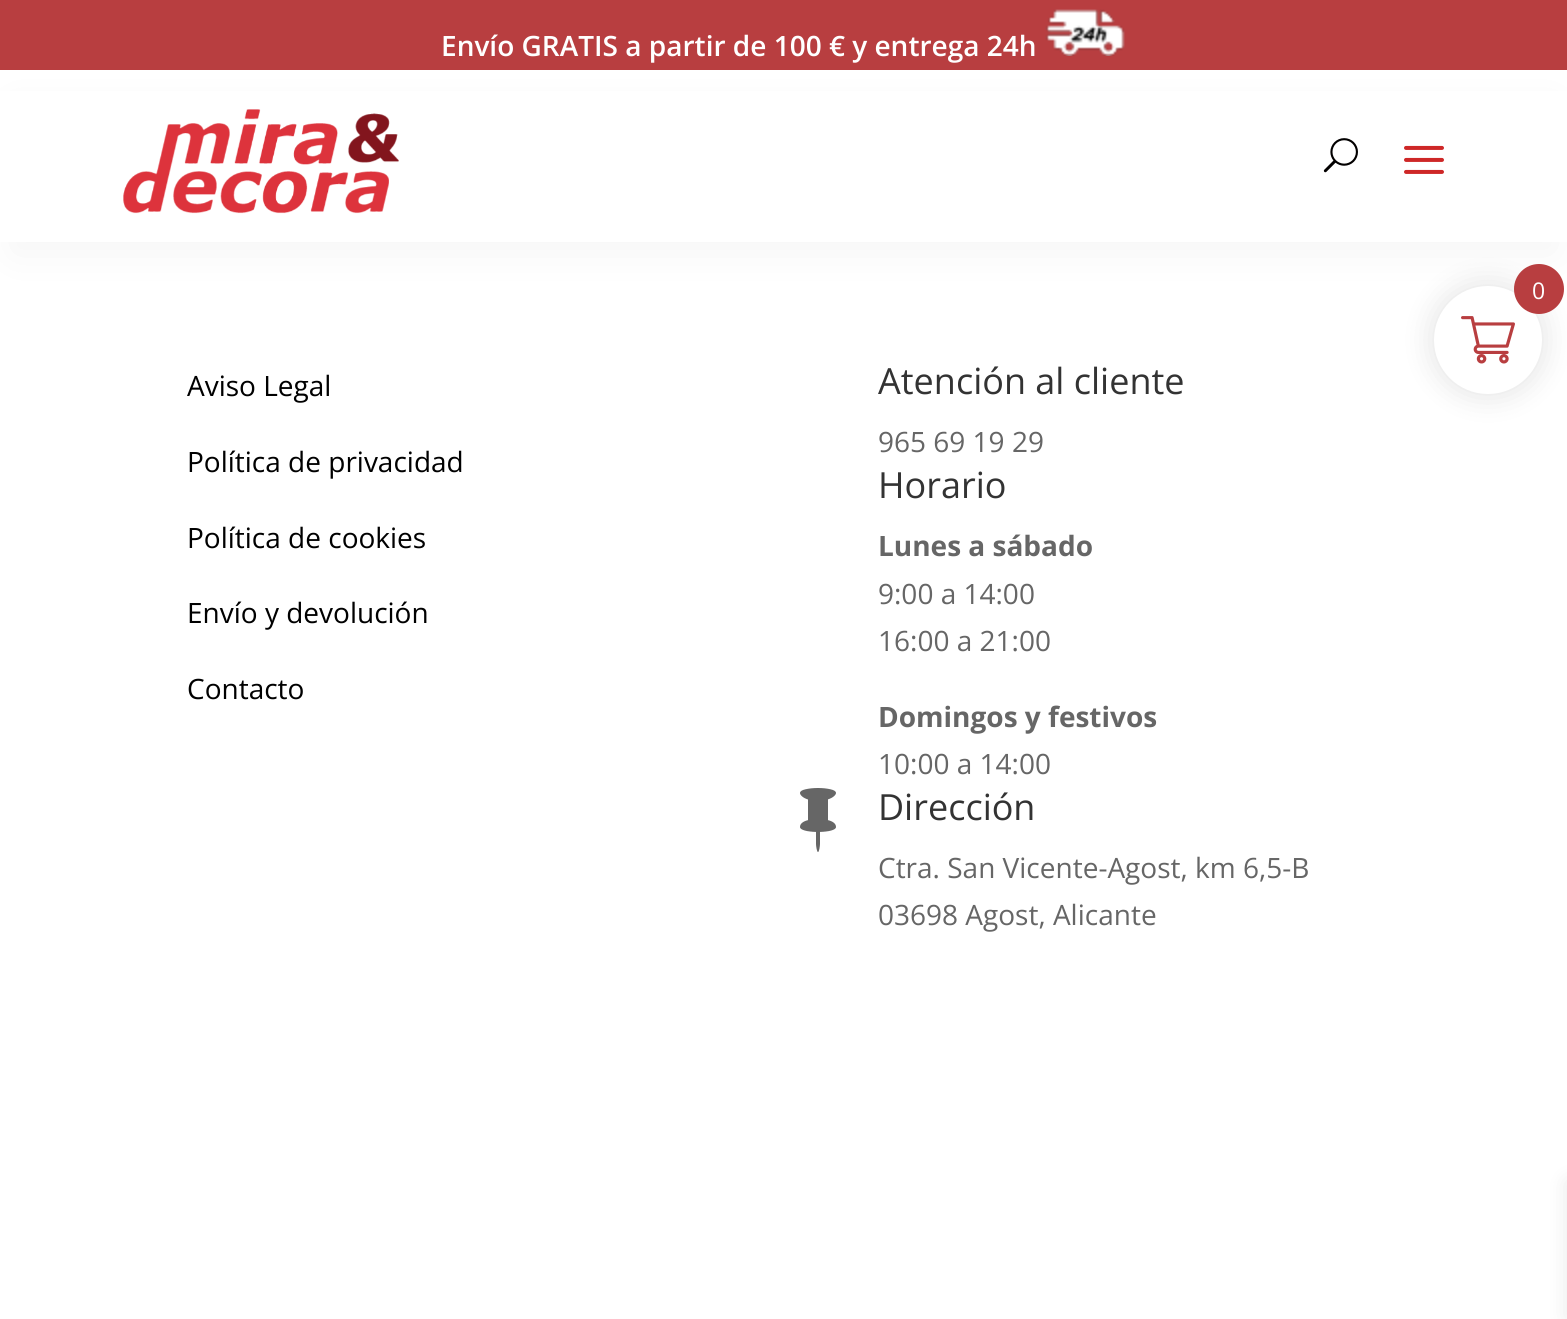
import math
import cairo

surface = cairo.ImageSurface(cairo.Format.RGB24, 1567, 1319)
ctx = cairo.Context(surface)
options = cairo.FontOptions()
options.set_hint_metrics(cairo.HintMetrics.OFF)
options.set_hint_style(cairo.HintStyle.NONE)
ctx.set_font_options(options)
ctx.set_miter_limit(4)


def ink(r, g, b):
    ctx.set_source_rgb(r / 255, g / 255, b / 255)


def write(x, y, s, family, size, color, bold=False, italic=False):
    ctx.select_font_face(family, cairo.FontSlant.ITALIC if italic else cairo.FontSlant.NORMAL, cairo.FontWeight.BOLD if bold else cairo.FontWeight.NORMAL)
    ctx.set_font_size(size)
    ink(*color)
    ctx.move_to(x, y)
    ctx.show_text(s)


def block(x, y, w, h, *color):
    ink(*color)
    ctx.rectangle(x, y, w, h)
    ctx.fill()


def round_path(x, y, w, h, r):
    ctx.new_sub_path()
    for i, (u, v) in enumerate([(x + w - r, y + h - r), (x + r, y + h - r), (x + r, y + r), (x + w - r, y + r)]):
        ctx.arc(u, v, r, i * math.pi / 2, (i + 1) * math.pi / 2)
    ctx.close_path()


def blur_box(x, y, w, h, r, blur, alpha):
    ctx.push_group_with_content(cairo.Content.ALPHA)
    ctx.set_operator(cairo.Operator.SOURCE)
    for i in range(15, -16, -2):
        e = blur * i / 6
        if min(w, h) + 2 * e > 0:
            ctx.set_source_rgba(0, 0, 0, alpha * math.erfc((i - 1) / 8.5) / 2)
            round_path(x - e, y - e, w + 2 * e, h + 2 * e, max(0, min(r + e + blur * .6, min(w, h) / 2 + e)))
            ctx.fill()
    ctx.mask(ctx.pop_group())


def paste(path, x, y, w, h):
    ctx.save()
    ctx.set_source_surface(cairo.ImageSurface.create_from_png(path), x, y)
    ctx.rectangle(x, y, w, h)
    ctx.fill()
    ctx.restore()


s1 = dict(family="Open Sans SemiBold", size=28, color=(255, 255, 255))
s2 = dict(family="Open Sans", size=28, color=(0, 0, 0))
s3 = dict(family="Open Sans", size=36, color=(51, 51, 51))
s4 = dict(family="Open Sans", size=28, color=(102, 102, 102))
s5 = dict(family="Open Sans", size=28, color=(102, 102, 102), bold=True)
s6 = dict(family="Open Sans", size=23, color=(255, 255, 255))

ink(255, 255, 255)
ctx.paint()
block(0, 0, 1567, 70, 184, 62, 64)
write(441, 56, "Envío GRATIS a partir de 100 € y entrega 24h", **s1)
paste("pic1.png", 1045, 9, 80, 47)
ink(0, 0, 0)
blur_box(12, 106, 1544, 148, 0, 23, 0.04)
block(0, 91, 1567, 151, 255, 255, 255)
paste("pic2.png", 123, 109, 276, 105)
paste("pic3.png", 1323, 138, 35, 35)
paste("pic4.png", 1404, 145, 40, 29)
write(187, 396, "Aviso Legal", **s2)
write(187, 472, "Política de privacidad", **s2)
write(187, 548, "Política de cookies", **s2)
write(187, 623, "Envío y devolución", **s2)
write(187, 699, "Contacto", **s2)
write(878, 394, "Atención al cliente", **s3)
write(878, 452, "965 69 19 29", **s4)
write(878, 498, "Horario", **s3)
write(878, 556, "Lunes a sábado", **s5)
write(878, 604, "9:00 a 14:00", **s4)
write(878, 651, "16:00 a 21:00", **s4)
write(878, 727, "Domingos y festivos", **s5)
write(878, 774, "10:00 a 14:00", **s4)
paste("pic5.png", 800, 788, 36, 64)
write(878, 820, "Dirección", **s3)
write(878, 878, "Ctra. San Vicente-Agost, km 6,5-B", **s4)
write(878, 925, "03698 Agost, Alicante", **s4)
ink(0, 0, 0)
blur_box(1430, 282, 116, 116, 58, 13.5, 0.1)
ink(255, 255, 255)
ctx.arc(1488, 340, 54, 0, 2 * math.pi)
ctx.fill()
ink(184, 62, 64)
ctx.arc(1539, 289, 25, 0, 2 * math.pi)
ctx.fill()
write(1532, 299, "0", **s6)
paste("pic6.png", 1461, 316, 54, 48)
ink(0, 0, 0)
blur_box(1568, 1182, 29, 136, 0, 10, 0.1)
surface.write_to_png("screenshot.png")
